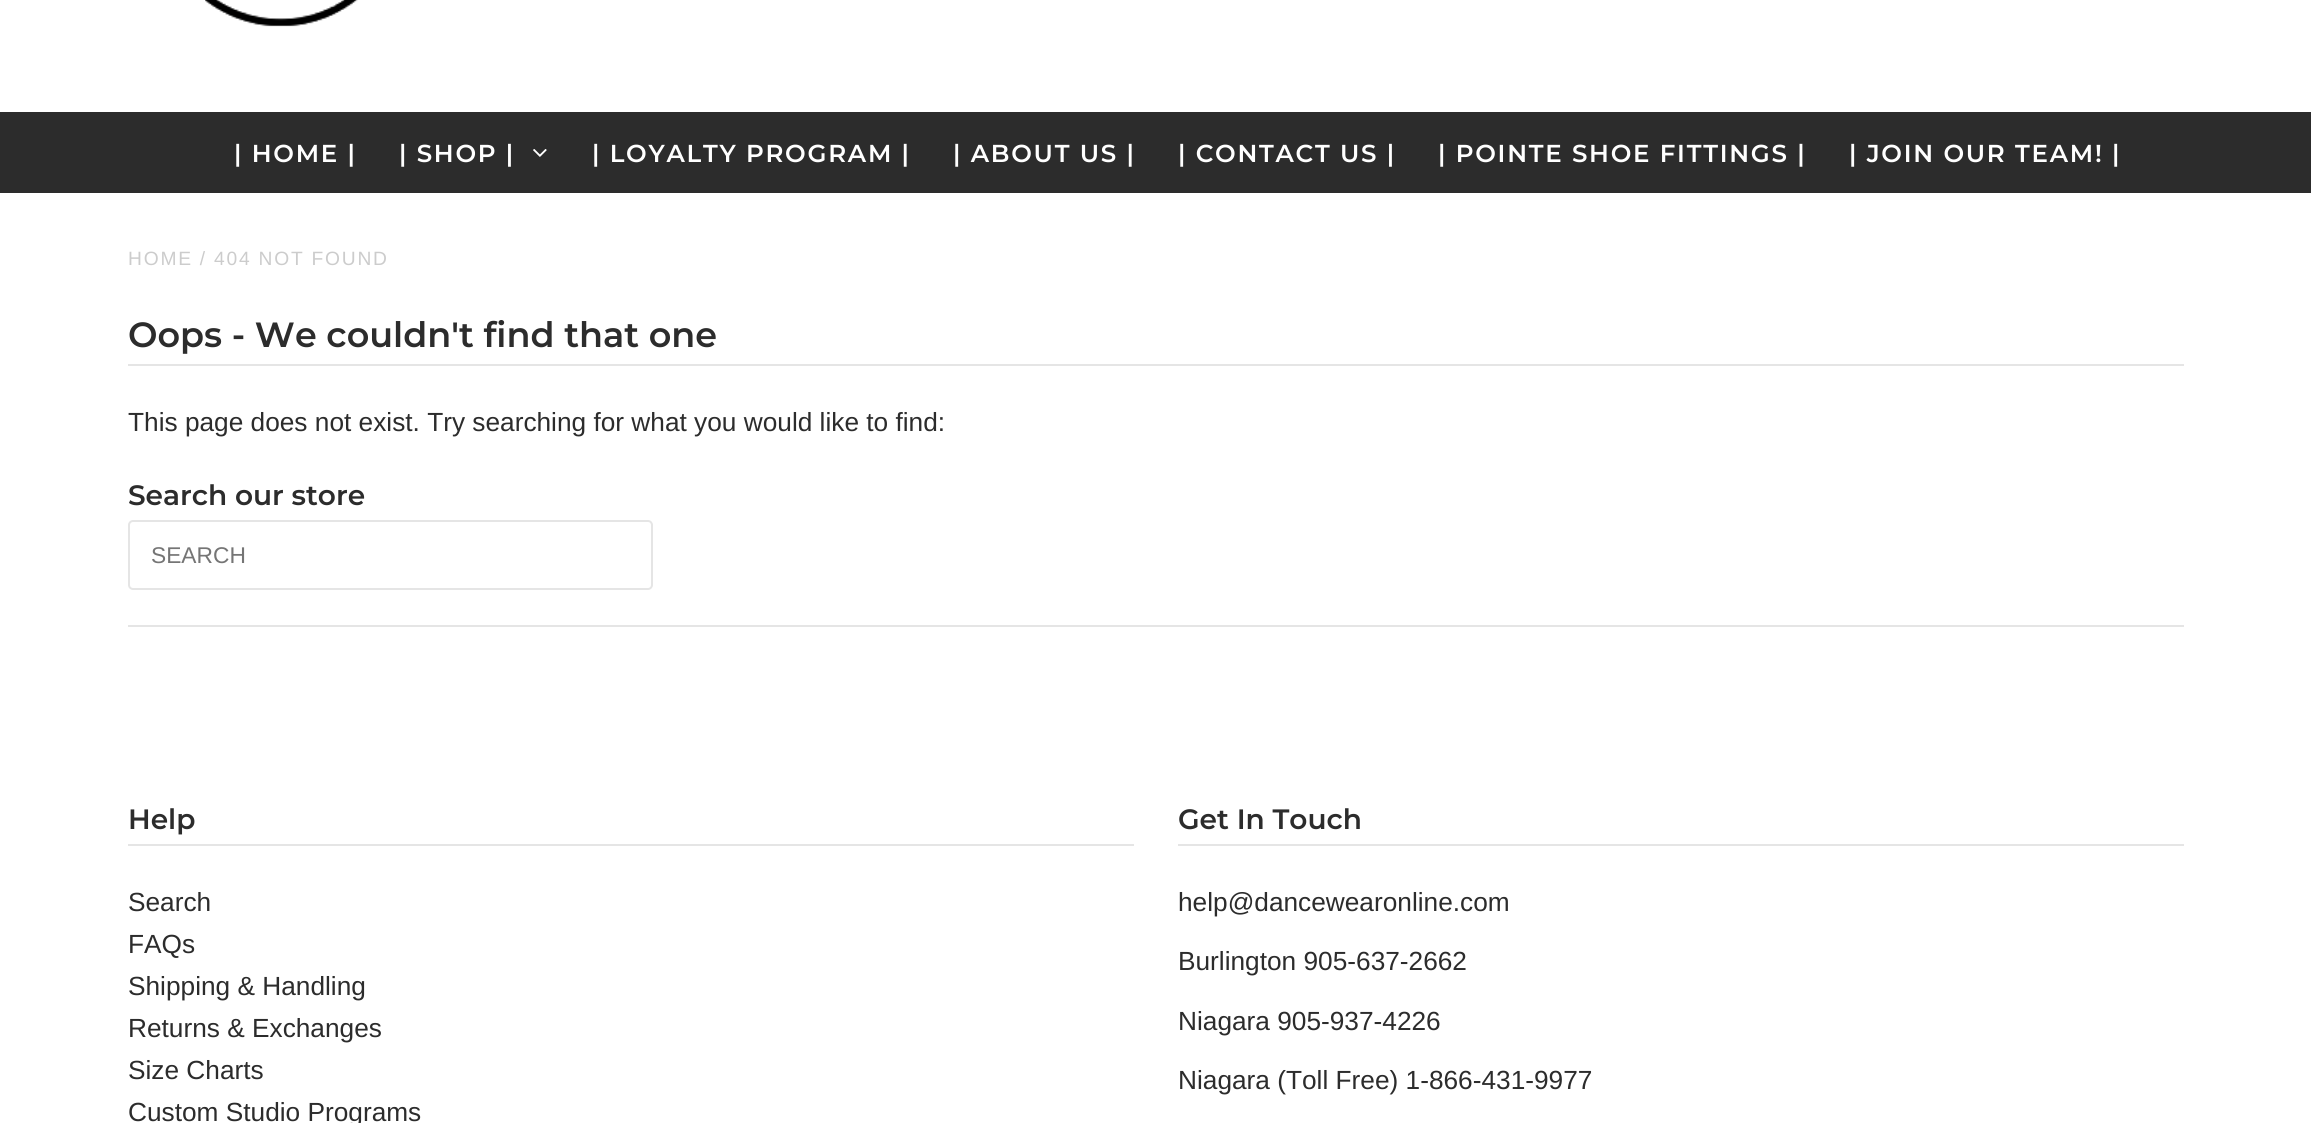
import math
import cairo

surface = cairo.ImageSurface(cairo.Format.RGB24, 2311, 1123)
ctx = cairo.Context(surface)
options = cairo.FontOptions()
options.set_hint_metrics(cairo.HintMetrics.OFF)
options.set_hint_style(cairo.HintStyle.NONE)
ctx.set_font_options(options)
ctx.set_miter_limit(4)


def ink(r, g, b):
    ctx.set_source_rgb(r / 255, g / 255, b / 255)


def write(x, y, s, family, size, color, bold=False, italic=False):
    ctx.select_font_face(family, cairo.FontSlant.ITALIC if italic else cairo.FontSlant.NORMAL, cairo.FontWeight.BOLD if bold else cairo.FontWeight.NORMAL)
    ctx.set_font_size(size)
    ink(*color)
    ctx.move_to(x, y)
    ctx.show_text(s)


def write_spaced(x, y, s, letter, word):
    ctx.move_to(x, y)
    for ch in s:
        ctx.show_text(ch)
        ctx.rel_move_to(letter + word * (ch == ' '), 0)


def block(x, y, w, h, *color):
    ink(*color)
    ctx.rectangle(x, y, w, h)
    ctx.fill()


def round_path(x, y, w, h, r):
    ctx.new_sub_path()
    for i, (u, v) in enumerate([(x + w - r, y + h - r), (x + r, y + h - r), (x + r, y + r), (x + w - r, y + r)]):
        ctx.arc(u, v, r, i * math.pi / 2, (i + 1) * math.pi / 2)
    ctx.close_path()


def paste(path, x, y, w, h):
    ctx.save()
    ctx.set_source_surface(cairo.ImageSurface.create_from_png(path), x, y)
    ctx.rectangle(x, y, w, h)
    ctx.fill()
    ctx.restore()


s1 = dict(family="Montserrat SemiBold", size=35, color=(44, 44, 44))
s2 = dict(family="Liberation Sans", size=26.25, color=(44, 44, 44))
s3 = dict(family="Montserrat SemiBold", size=28, color=(44, 44, 44))
s4 = dict(family="Liberation Sans", size=22.75, color=(117, 117, 117))

ink(255, 255, 255)
ctx.paint()
paste("pic1.png", 205, 0, 153, 27)
block(0, 112, 2311, 81, 44, 44, 44)
ctx.select_font_face("Montserrat SemiBold")
ctx.set_font_size(24.5)
ink(255, 255, 255)
write_spaced(234, 162, "| HOME |", 1.75, 0)
write_spaced(399, 162, "| SHOP |", 1.75, 0)
paste("pic2.png", 533, 149, 14, 8)
write_spaced(592, 162, "| LOYALTY PROGRAM |", 1.75, 0)
write_spaced(953, 162, "| ABOUT US |", 1.75, 0)
write_spaced(1178, 162, "| CONTACT US |", 1.75, 0)
write_spaced(1438, 162, "| POINTE SHOE FITTINGS |", 1.75, 0)
write_spaced(1849, 162, "| JOIN OUR TEAM! |", 1.75, 0)
ctx.select_font_face("Liberation Sans")
ctx.set_font_size(19.25)
ink(204, 204, 204)
write_spaced(128, 265, "HOME / 404 NOT FOUND", 1.75, 0)
block(128, 364, 2056, 2, 229, 229, 229)
write(128, 347, "Oops - We couldn't find that one", **s1)
write(128, 431, "This page does not exist. Try searching for what you would like to find:", **s2)
block(128, 625, 2056, 2, 229, 229, 229)
write(128, 505, "Search our store", **s3)
round_path(129, 521, 523, 68, 4)
ink(229, 229, 229)
ctx.stroke()
write(151, 563, "SEARCH", **s4)
block(128, 844, 1006, 2, 229, 229, 229)
write(128, 829, "Help", **s3)
write(128, 911, "Search", **s2)
write(128, 953, "FAQs", **s2)
write(128, 995, "Shipping & Handling", **s2)
write(128, 1037, "Returns & Exchanges", **s2)
write(128, 1079, "Size Charts", **s2)
write(128, 1121, "Custom Studio Programs", **s2)
block(1178, 844, 1006, 2, 229, 229, 229)
write(1178, 829, "Get In Touch", **s3)
write(1178, 911, "help@dancewearonline.com", **s2)
write(1178, 970, "Burlington 905-637-2662", **s2)
write(1178, 1030, "Niagara 905-937-4226", **s2)
write(1178, 1089, "Niagara (Toll Free) 1-866-431-9977", **s2)
surface.write_to_png("screenshot.png")
